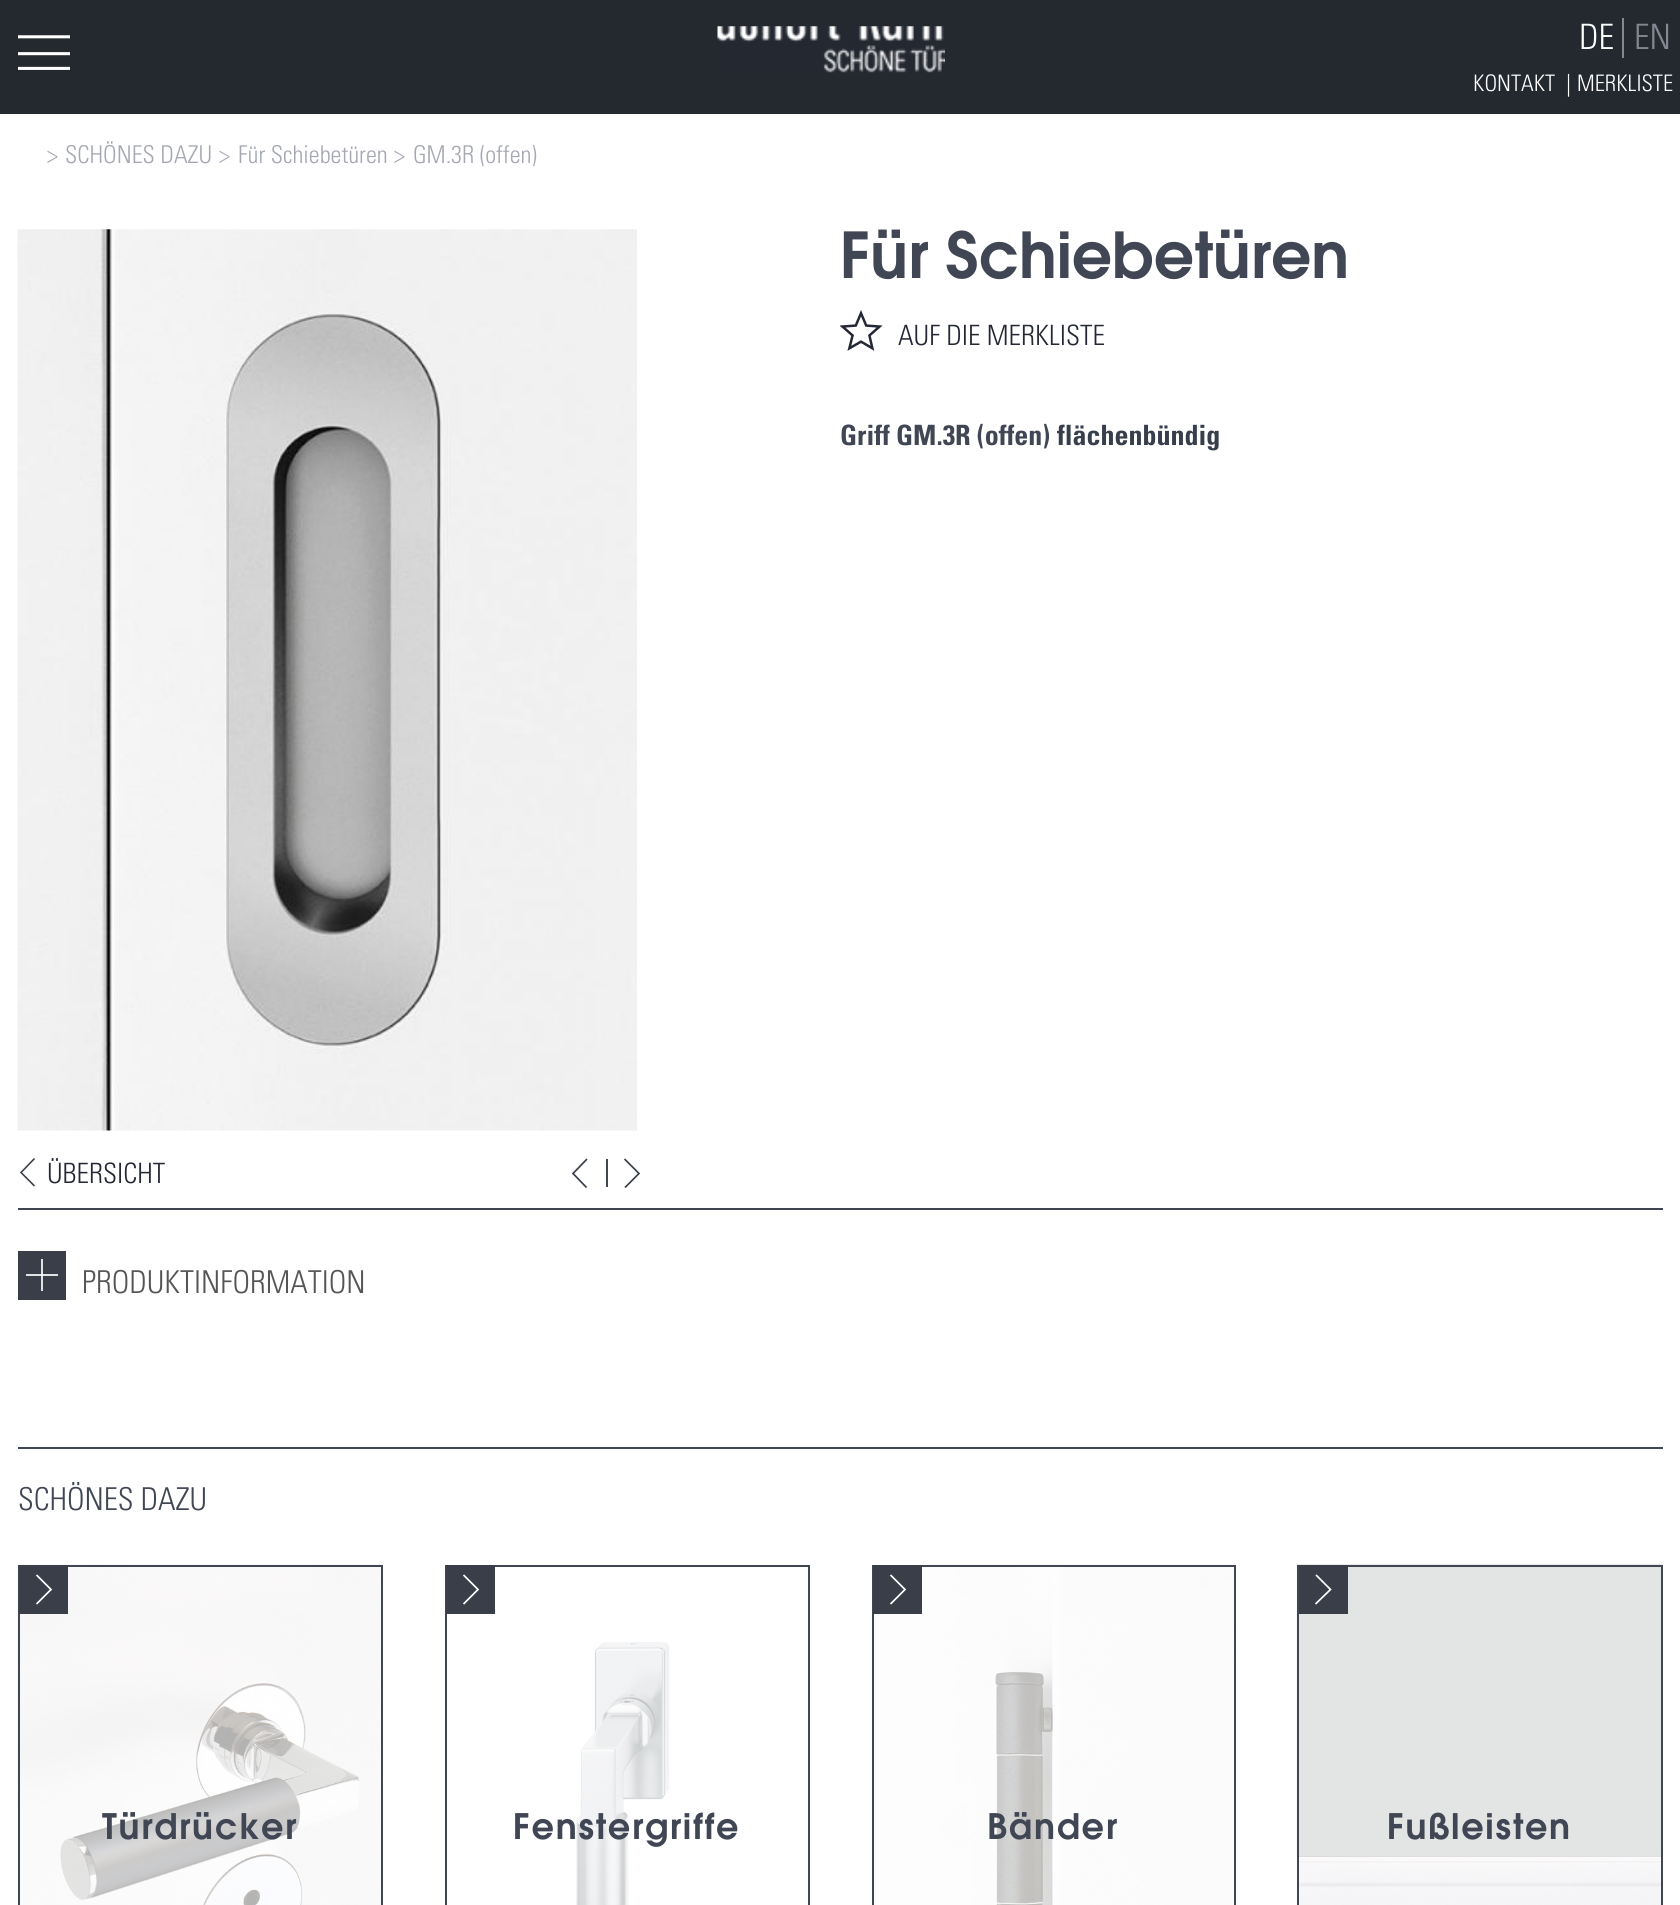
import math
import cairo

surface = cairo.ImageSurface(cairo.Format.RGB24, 1680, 1905)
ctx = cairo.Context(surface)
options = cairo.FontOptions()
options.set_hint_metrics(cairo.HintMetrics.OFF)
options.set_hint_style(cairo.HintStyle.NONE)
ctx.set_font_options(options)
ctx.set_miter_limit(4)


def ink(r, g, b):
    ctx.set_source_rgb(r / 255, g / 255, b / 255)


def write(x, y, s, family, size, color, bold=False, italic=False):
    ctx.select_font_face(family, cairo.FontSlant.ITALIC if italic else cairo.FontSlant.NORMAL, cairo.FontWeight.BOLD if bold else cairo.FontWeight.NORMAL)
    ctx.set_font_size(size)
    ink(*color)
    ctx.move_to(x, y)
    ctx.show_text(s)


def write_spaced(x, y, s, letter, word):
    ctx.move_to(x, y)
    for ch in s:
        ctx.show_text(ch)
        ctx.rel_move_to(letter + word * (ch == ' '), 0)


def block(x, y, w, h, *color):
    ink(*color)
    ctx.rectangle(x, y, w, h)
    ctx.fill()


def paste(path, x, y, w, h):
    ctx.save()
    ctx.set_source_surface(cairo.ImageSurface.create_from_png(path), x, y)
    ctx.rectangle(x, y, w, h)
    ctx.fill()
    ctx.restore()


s1 = dict(family="Univers Light", size=35, color=(255, 255, 255))
s2 = dict(family="Univers Light", size=35, color=(132, 135, 146))
s3 = dict(family="Univers Light", size=24.5, color=(165, 168, 178))
s4 = dict(family="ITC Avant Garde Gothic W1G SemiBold", size=63, color=(64, 70, 84))
s5 = dict(family="Univers Light", size=28, color=(36, 40, 52))
s6 = dict(family="Univers", size=28, color=(64, 70, 84), bold=True)
s7 = dict(family="Univers", size=28, color=(55, 62, 76), bold=True)
s8 = dict(family="Univers Light", size=31.5, color=(85, 85, 85))
s9 = dict(family="Univers Light", size=31.5, color=(64, 70, 84))
s10 = dict(family="Univers Light", size=22.75, color=(255, 255, 255))

ink(255, 255, 255)
ctx.paint()
block(0, 0, 1680, 114, 36, 41, 48)
paste("pic1.png", 717, 26, 228, 47)
paste("pic2.png", 18, 35, 52, 35)
block(1622, 18, 2, 40, 132, 135, 146)
write(1579, 49, "DE", **s1)
write(1634, 49, "EN", **s2)
write(47, 163, ">", **s3)
write(65, 163, "SCHÖNES DAZU", **s3)
write(219, 163, ">", **s3)
write(238, 163, "Für Schiebetüren", **s3)
write(394, 163, ">", **s3)
write(413, 163, "GM.3R (offen)", **s3)
write(840, 278, "Für Schiebetüren", **s4)
paste("pic3.png", 17, 229, 620, 902)
paste("pic4.png", 840, 310, 43, 41)
write(898, 345, "AUF DIE MERKLISTE", **s5)
write(840, 445, "Griff GM.3R (offen)", **s6)
write(1057, 445, "flächenbündig", **s7)
block(18, 1208, 1645, 2, 64, 70, 84)
ctx.new_path()
ctx.move_to(34.5, 1186)
ctx.line_to(21, 1172.5)
ctx.line_to(34.5, 1158.5)
ink(58, 62, 72)
ctx.set_line_width(1.6)
ctx.stroke()
write(47, 1183, "ÜBERSICHT", **s5)
block(606, 1159, 2, 28, 64, 70, 84)
ctx.new_path()
ctx.move_to(586.5, 1187.5)
ctx.line_to(573, 1173.5)
ctx.line_to(587, 1159)
ink(58, 62, 72)
ctx.set_line_width(1.7)
ctx.stroke()
ctx.new_path()
ctx.move_to(625, 1187.5)
ctx.line_to(639, 1173.5)
ctx.line_to(624.5, 1159)
ctx.stroke()
block(20, 1254, 44, 44, 58, 62, 72)
block(26, 1274, 32, 2, 225, 226, 228)
ink(58, 62, 72)
ctx.new_path()
ctx.move_to(64, 1254)
ctx.line_to(64, 1298)
ctx.line_to(20, 1298)
ctx.line_to(20, 1254)
ctx.line_to(64, 1254)
ctx.move_to(66, 1251)
ctx.line_to(18, 1251)
ctx.line_to(18, 1300)
ctx.line_to(66, 1300)
ctx.close_path()
ctx.fill()
block(41, 1259, 2, 32, 225, 226, 228)
block(41, 1274, 2, 2, 251, 251, 251)
write(82, 1293, "PRODUKTINFORMATION", **s8)
block(18, 1447, 1645, 2, 64, 70, 84)
write(18, 1510, "SCHÖNES DAZU", **s9)
paste("pic5.png", 17, 1564, 366, 341)
ctx.rectangle(19, 1566, 363, 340)
ctx.set_line_width(2)
ctx.stroke()
block(22, 1567, 44, 44, 58, 62, 72)
ctx.save()
ctx.rectangle(19, 1565, 49, 49)
ctx.clip()
ctx.new_path()
ctx.move_to(66, 1567)
ctx.line_to(66, 1611)
ctx.line_to(22, 1611)
ctx.line_to(22, 1567)
ctx.line_to(66, 1567)
ctx.move_to(68, 1564)
ctx.line_to(19, 1564)
ctx.line_to(19, 1614)
ctx.line_to(68, 1614)
ctx.close_path()
ctx.fill()
ctx.restore()
ctx.new_path()
ctx.move_to(36.5, 1575)
ctx.line_to(51, 1589.5)
ctx.line_to(36.5, 1604)
ink(255, 255, 255)
ctx.set_line_width(1.7)
ctx.stroke()
ctx.select_font_face("ITC Avant Garde Gothic W1G SemiBold")
ctx.set_font_size(35)
ink(64, 70, 84)
write_spaced(102, 1839, "Türdrücker", 1.75, 0)
paste("pic6.png", 576, 1641, 94, 264)
ctx.rectangle(446, 1566, 363, 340)
ctx.set_line_width(2)
ctx.stroke()
block(449, 1567, 44, 44, 58, 62, 72)
ctx.save()
ctx.rectangle(446, 1565, 49, 49)
ctx.clip()
ctx.new_path()
ctx.move_to(493, 1567)
ctx.line_to(493, 1611)
ctx.line_to(449, 1611)
ctx.line_to(449, 1567)
ctx.line_to(493, 1567)
ctx.move_to(495, 1564)
ctx.line_to(446, 1564)
ctx.line_to(446, 1614)
ctx.line_to(495, 1614)
ctx.close_path()
ctx.fill()
ctx.restore()
ctx.new_path()
ctx.move_to(463.5, 1575)
ctx.line_to(478, 1589.5)
ctx.line_to(463.5, 1604)
ink(255, 255, 255)
ctx.set_line_width(1.7)
ctx.stroke()
ink(64, 70, 84)
write_spaced(513, 1839, "Fenstergriffe", 1.75, 0)
paste("pic7.png", 872, 1564, 364, 341)
ctx.rectangle(873, 1566, 362, 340)
ctx.set_line_width(2)
ctx.stroke()
block(876, 1567, 44, 44, 58, 62, 72)
ctx.save()
ctx.rectangle(873, 1565, 49, 49)
ctx.clip()
ctx.new_path()
ctx.move_to(920, 1567)
ctx.line_to(920, 1611)
ctx.line_to(876, 1611)
ctx.line_to(876, 1567)
ctx.line_to(920, 1567)
ctx.move_to(922, 1564)
ctx.line_to(873, 1564)
ctx.line_to(873, 1614)
ctx.line_to(922, 1614)
ctx.close_path()
ctx.fill()
ctx.restore()
ctx.new_path()
ctx.move_to(890.5, 1575)
ctx.line_to(905, 1589.5)
ctx.line_to(890.5, 1604)
ink(255, 255, 255)
ctx.set_line_width(1.7)
ctx.stroke()
ink(64, 70, 84)
write_spaced(987, 1839, "Bänder", 1.75, 0)
paste("pic8.png", 1296, 1564, 367, 341)
ctx.rectangle(1298, 1566, 364, 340)
ctx.set_line_width(2)
ctx.stroke()
block(1301, 1567, 44, 44, 58, 62, 72)
ctx.save()
ctx.rectangle(1299, 1565, 49, 49)
ctx.clip()
ctx.new_path()
ctx.move_to(1345, 1567)
ctx.line_to(1345, 1611)
ctx.line_to(1301, 1611)
ctx.line_to(1301, 1567)
ctx.line_to(1345, 1567)
ctx.move_to(1348, 1564)
ctx.line_to(1298, 1564)
ctx.line_to(1298, 1614)
ctx.line_to(1348, 1614)
ctx.close_path()
ctx.fill()
ctx.restore()
ctx.new_path()
ctx.move_to(1316, 1575)
ctx.line_to(1330.5, 1589.5)
ctx.line_to(1315.5, 1604)
ink(255, 255, 255)
ctx.set_line_width(1.7)
ctx.stroke()
ink(64, 70, 84)
write_spaced(1387, 1839, "Fußleisten", 1.75, 0)
write(1473, 91, "KONTAKT", **s10)
write(1566, 91, "|", **s10)
write(1577, 91, "MERKLISTE", **s10)
surface.write_to_png("screenshot.png")
